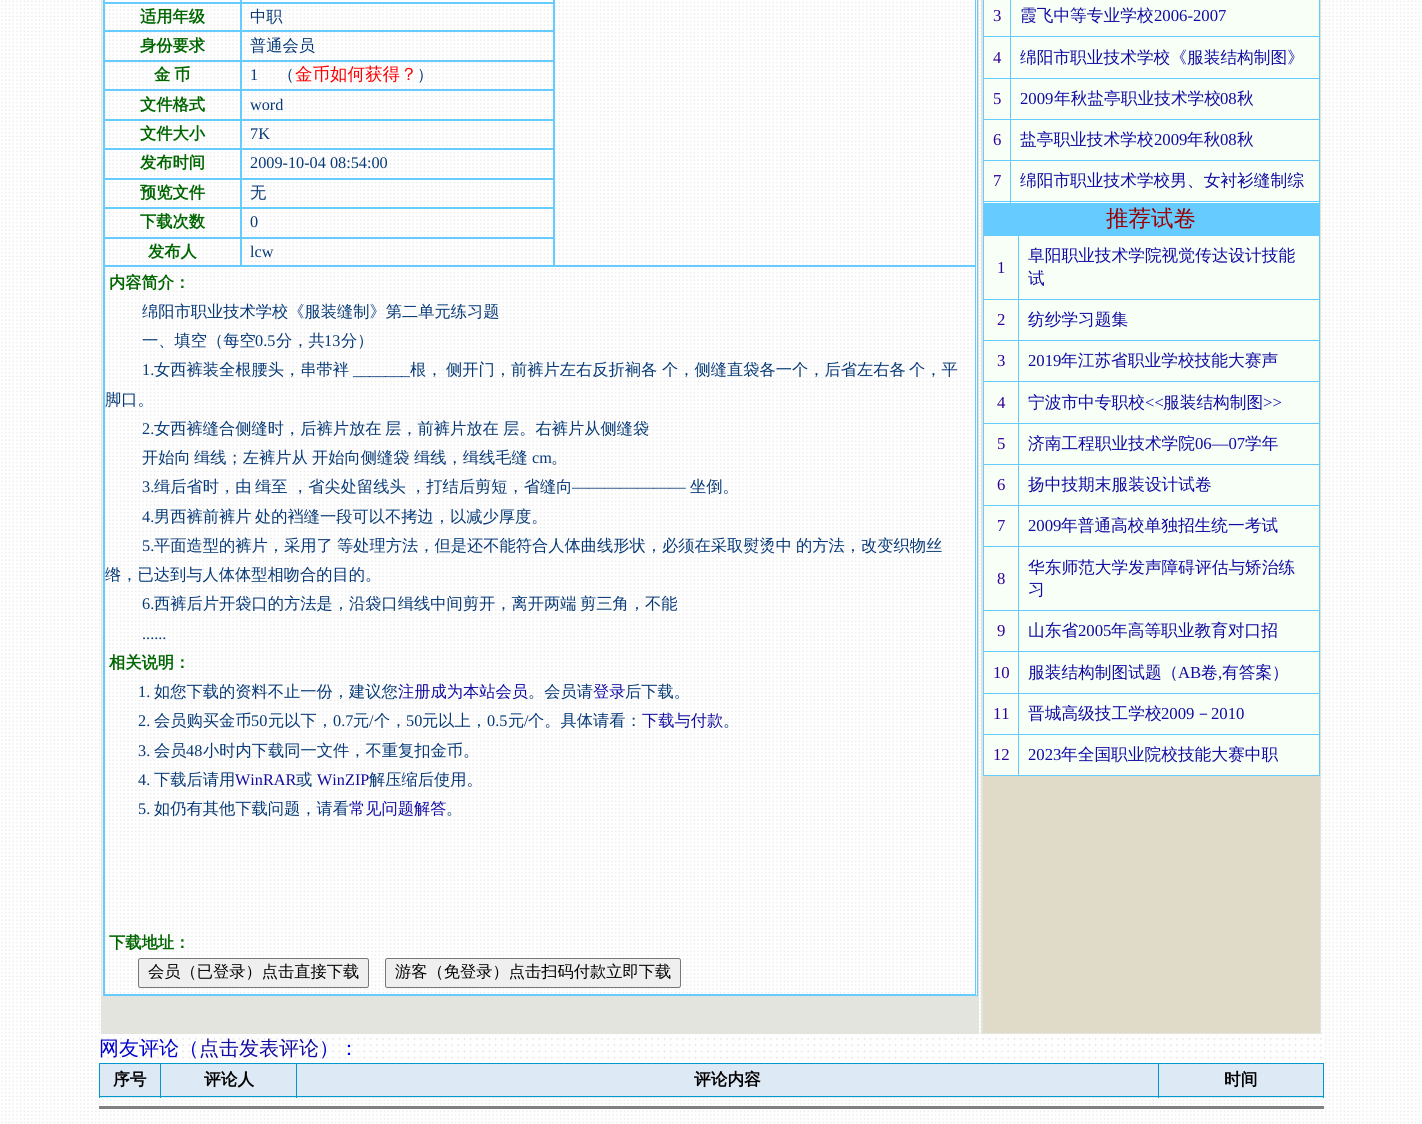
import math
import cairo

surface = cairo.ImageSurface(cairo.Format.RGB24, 1422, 1124)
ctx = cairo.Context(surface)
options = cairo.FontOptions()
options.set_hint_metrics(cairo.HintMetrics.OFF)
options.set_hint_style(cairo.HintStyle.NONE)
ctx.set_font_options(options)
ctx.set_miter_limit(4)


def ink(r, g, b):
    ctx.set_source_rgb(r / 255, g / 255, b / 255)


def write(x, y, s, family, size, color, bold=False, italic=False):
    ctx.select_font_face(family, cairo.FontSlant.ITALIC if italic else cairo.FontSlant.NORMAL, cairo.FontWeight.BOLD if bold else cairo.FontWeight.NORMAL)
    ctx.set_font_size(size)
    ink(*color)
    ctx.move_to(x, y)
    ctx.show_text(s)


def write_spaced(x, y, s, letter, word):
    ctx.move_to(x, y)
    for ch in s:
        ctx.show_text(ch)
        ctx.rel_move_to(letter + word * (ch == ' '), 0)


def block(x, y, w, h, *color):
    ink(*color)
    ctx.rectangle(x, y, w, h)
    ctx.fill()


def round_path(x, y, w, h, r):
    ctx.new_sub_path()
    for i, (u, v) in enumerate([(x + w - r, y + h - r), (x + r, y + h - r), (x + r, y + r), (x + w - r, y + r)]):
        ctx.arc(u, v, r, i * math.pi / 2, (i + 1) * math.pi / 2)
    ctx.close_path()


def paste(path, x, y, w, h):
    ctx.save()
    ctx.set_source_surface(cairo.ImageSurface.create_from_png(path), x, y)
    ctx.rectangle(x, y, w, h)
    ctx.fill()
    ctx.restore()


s1 = dict(family="WenQuanYi Zen Hei", size=16.25, color=(0, 102, 0), bold=True)
s2 = dict(family="WenQuanYi Zen Hei Medium", size=16.25, color=(6, 57, 118))
s3 = dict(family="Liberation Serif", size=16.25, color=(6, 57, 118))
s4 = dict(family="WenQuanYi Zen Hei Medium", size=17.5, color=(255, 0, 0))
s5 = dict(family="WenQuanYi Zen Hei Medium", size=16.25, color=(18, 11, 161))
s6 = dict(family="Liberation Serif", size=16.25, color=(18, 11, 161))
s7 = dict(family="WenQuanYi Zen Hei Medium", size=16.25, color=(0, 0, 0))
s8 = dict(family="Liberation Serif", size=16.7, color=(51, 0, 153))
s9 = dict(family="WenQuanYi Zen Hei Medium", size=16.7, color=(18, 11, 161))
s10 = dict(family="Liberation Serif", size=16.7, color=(18, 11, 161))
s11 = dict(family="WenQuanYi Zen Hei Medium", size=22.5, color=(153, 0, 0))
s12 = dict(family="WenQuanYi Zen Hei Medium", size=20, color=(0, 0, 204))
s13 = dict(family="WenQuanYi Zen Hei Medium", size=20, color=(18, 11, 161))
s14 = dict(family="WenQuanYi Zen Hei", size=16.7, color=(0, 0, 0), bold=True)

ink(255, 255, 255)
ctx.paint()
paste("pic1.png", 1, 0, 1419, 1124)
block(101, 0, 878, 1034, 228, 228, 222)
paste("pic2.png", 102, 0, 875, 996)
ctx.rectangle(103.5, -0.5, 874, 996)
ink(102, 204, 255)
ctx.set_line_width(1)
ctx.stroke()
ctx.rectangle(104.5, -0.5, 136, 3)
ctx.stroke()
ctx.rectangle(241.5, -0.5, 312, 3)
ctx.stroke()
ctx.rectangle(554.5, -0.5, 421, 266)
ctx.stroke()
ctx.rectangle(104.5, 3.5, 136, 27)
ctx.stroke()
write(140, 22, "适用年级", **s1)
ctx.rectangle(241.5, 3.5, 312, 27)
ink(102, 204, 255)
ctx.stroke()
write(250, 22, "中职", **s2)
ctx.rectangle(104.5, 31.5, 136, 29)
ink(102, 204, 255)
ctx.stroke()
write(140, 51, "身份要求", **s1)
ctx.rectangle(241.5, 31.5, 312, 29)
ink(102, 204, 255)
ctx.stroke()
write(250, 51, "普通会员", **s2)
ctx.rectangle(104.5, 61.5, 136, 28)
ink(102, 204, 255)
ctx.stroke()
ctx.select_font_face("WenQuanYi Zen Hei", cairo.FontSlant.NORMAL, cairo.FontWeight.BOLD)
ink(0, 102, 0)
write_spaced(154, 80, "金 币", 0, -1)
ctx.rectangle(241.5, 61.5, 312, 28)
ink(102, 204, 255)
ctx.stroke()
write(250, 80, "1", **s3)
write(278, 80, "（", **s2)
write(295, 80, "金币如何获得？", **s4)
write(417, 80, "）", **s2)
ctx.rectangle(104.5, 90.5, 136, 29)
ink(102, 204, 255)
ctx.stroke()
write(140, 110, "文件格式", **s1)
ctx.rectangle(241.5, 90.5, 312, 29)
ink(102, 204, 255)
ctx.stroke()
write(250, 110, "word", **s3)
ctx.rectangle(104.5, 120.5, 136, 28)
ink(102, 204, 255)
ctx.stroke()
write(140, 139, "文件大小", **s1)
ctx.rectangle(241.5, 120.5, 312, 28)
ink(102, 204, 255)
ctx.stroke()
write(250, 139, "7K", **s3)
ctx.rectangle(104.5, 149.5, 136, 29)
ink(102, 204, 255)
ctx.stroke()
write(140, 168, "发布时间", **s1)
ctx.rectangle(241.5, 149.5, 312, 29)
ink(102, 204, 255)
ctx.stroke()
write(250, 168, "2009-10-04 08:54:00", **s3)
ctx.rectangle(104.5, 179.5, 136, 28)
ink(102, 204, 255)
ctx.stroke()
write(140, 198, "预览文件", **s1)
ctx.rectangle(241.5, 179.5, 312, 28)
ink(102, 204, 255)
ctx.stroke()
write(250, 198, "无", **s2)
ctx.rectangle(104.5, 208.5, 136, 29)
ink(102, 204, 255)
ctx.stroke()
write(140, 227, "下载次数", **s1)
ctx.rectangle(241.5, 208.5, 312, 29)
ink(102, 204, 255)
ctx.stroke()
write(250, 227, "0", **s3)
ctx.rectangle(104.5, 238.5, 136, 27)
ink(102, 204, 255)
ctx.stroke()
write(148, 257, "发布人", **s1)
ctx.rectangle(241.5, 238.5, 312, 27)
ink(102, 204, 255)
ctx.stroke()
write(250, 257, "lcw", **s3)
ctx.rectangle(104.5, 266.5, 871, 728)
ink(102, 204, 255)
ctx.stroke()
write(109, 288, "内容简介：", **s1)
write(142, 317, "绵阳市职业技术学校《服装缝制》第二单元练习题", **s2)
write(142, 346, "一、填空（每空", **s2)
write(255, 346, "0.5", **s3)
write(276, 346, "分，共", **s2)
write(324, 346, "13", **s3)
write(341, 346, "分）", **s2)
write(142, 375, "1.", **s3)
write(154, 375, "女西裤装全根腰头，串带袢", **s2)
write(353, 375, "_______", **s3)
write(410, 375, "根，", **s2)
write(446, 375, "侧开门，前裤片左右反折裥各", **s2)
write(662, 375, "个，侧缝直袋各一个，后省左右各", **s2)
write(909, 375, "个，平", **s2)
write(105, 405, "脚口。", **s2)
write(142, 434, "2.", **s3)
write(154, 434, "女西裤缝合侧缝时，后裤片放在", **s2)
write(385, 434, "层，前裤片放在", **s2)
write(503, 434, "层。右裤片从侧缝袋", **s2)
write(142, 463, "开始向", **s2)
write(194, 463, "缉线；左裤片从", **s2)
write(312, 463, "开始向侧缝袋", **s2)
write(414, 463, "缉线，缉线毛缝", **s2)
write(532, 463, "cm", **s3)
write(551, 463, "。", **s2)
write(142, 492, "3.", **s3)
write(154, 492, "缉后省时，由", **s2)
write(255, 492, "缉至", **s2)
write(292, 492, "，省尖处留线头", **s2)
write(410, 492, "，打结后剪短，省缝向", **s2)
write(572, 492, "———————", **s3)
write(690, 492, "坐倒。", **s2)
write(142, 522, "4.", **s3)
write(154, 522, "男西裤前裤片", **s2)
write(255, 522, "处的裆缝一段可以不拷边，以减少厚度。", **s2)
write(142, 551, "5.", **s3)
write(154, 551, "平面造型的裤片，采用了", **s2)
write(337, 551, "等处理方法，但是还不能符合人体曲线形状，必须在采取熨烫中", **s2)
write(796, 551, "的方法，改变织物丝", **s2)
write(105, 580, "绺，已达到与人体体型相吻合的目的。", **s2)
write(142, 609, "6.", **s3)
write(154, 609, "西裤后片开袋口的方法是，沿袋口缉线中间剪开，离开两端", **s2)
write(580, 609, "剪三角，不能", **s2)
write(142, 639, "......", **s3)
write(109, 668, "相关说明：", **s1)
write(138, 697, "1.", **s3)
write(154, 697, "如您下载的资料不止一份，建议您", **s2)
write(398, 697, "注册成为本站会员", **s5)
write(528, 697, "。会员请", **s2)
write(593, 697, "登录", **s5)
write(625, 697, "后下载。", **s2)
write(138, 726, "2.", **s3)
write(154, 726, "会员购买金币", **s2)
write(251, 726, "50", **s3)
write(268, 726, "元以下，", **s2)
write(333, 726, "0.7", **s3)
write(353, 726, "元", **s2)
write(369, 726, "/", **s3)
write(374, 726, "个，", **s2)
write(406, 726, "50", **s3)
write(422, 726, "元以上，", **s2)
write(487, 726, "0.5", **s3)
write(508, 726, "元", **s2)
write(524, 726, "/", **s3)
write(528, 726, "个。具体请看：", **s2)
write(642, 726, "下载与付款", **s5)
write(723, 726, "。", **s2)
write(138, 756, "3.", **s3)
write(154, 756, "会员", **s2)
write(186, 756, "48", **s3)
write(203, 756, "小时内下载同一文件，不重复扣金币。", **s2)
write(138, 785, "4.", **s3)
write(154, 785, "下载后请用", **s2)
write(235, 785, "WinRAR", **s6)
write(296, 785, "或", **s2)
write(317, 785, "WinZIP", **s6)
write(369, 785, "解压缩后使用。", **s2)
write(138, 814, "5.", **s3)
write(154, 814, "如仍有其他下载问题，请看", **s2)
write(349, 814, "常见问题解答", **s5)
write(446, 814, "。", **s2)
write(109, 948, "下载地址：", **s1)
ink(239, 239, 239)
round_path(138.5, 958.5, 230, 29, 2)
ctx.fill_preserve()
ink(118, 118, 118)
ctx.stroke()
write(148, 977, "会员（已登录）点击直接下载", **s7)
ink(239, 239, 239)
round_path(385.5, 958.5, 295, 29, 2)
ctx.fill_preserve()
ink(118, 118, 118)
ctx.stroke()
write(395, 977, "游客（免登录）点击扫码付款立即下载", **s7)
block(981, 0, 340, 1034, 228, 228, 222)
block(984, 0, 335, 203, 247, 255, 247)
write(993, 21, "3", **s8)
block(1010, 36, 310, 1, 102, 204, 255)
block(1010, 78, 310, 1, 102, 204, 255)
block(1010, 119, 310, 1, 102, 204, 255)
block(1010, 160, 310, 1, 102, 204, 255)
block(1319, 160, 1, 43, 102, 204, 255)
block(1010, 201, 310, 1, 102, 204, 255)
block(1010, 160, 1, 43, 102, 204, 255)
block(983, 160, 28, 1, 102, 204, 255)
block(1010, 119, 1, 42, 102, 204, 255)
block(983, 119, 28, 1, 102, 204, 255)
block(1010, 78, 1, 42, 102, 204, 255)
block(983, 78, 28, 1, 102, 204, 255)
block(1010, 36, 1, 43, 102, 204, 255)
block(983, 36, 28, 1, 102, 204, 255)
block(1010, 0, 1, 38, 102, 204, 255)
write(1020, 21, "霞飞中等专业学校", **s9)
write(1154, 21, "2006-2007", **s10)
block(983, 201, 28, 1, 102, 204, 255)
block(983, 160, 1, 43, 102, 204, 255)
block(983, 119, 1, 42, 102, 204, 255)
block(983, 78, 1, 42, 102, 204, 255)
block(983, 0, 1, 79, 102, 204, 255)
write(993, 63, "4", **s8)
block(1319, 119, 1, 42, 102, 204, 255)
block(1319, 78, 1, 42, 102, 204, 255)
block(1319, 0, 1, 79, 102, 204, 255)
write(1020, 63, "绵阳市职业技术学校《服装结构制图》", **s9)
write(993, 104, "5", **s8)
write(1020, 104, "2009", **s10)
write(1054, 104, "年秋盐亭职业技术学校", **s9)
write(1220, 104, "08", **s10)
write(1237, 104, "秋", **s9)
write(993, 145, "6", **s8)
write(1020, 145, "盐亭职业技术学校", **s9)
write(1154, 145, "2009", **s10)
write(1187, 145, "年秋", **s9)
write(1220, 145, "08", **s10)
write(1237, 145, "秋", **s9)
write(993, 186, "7", **s8)
write(1020, 186, "绵阳市职业技术学校男、女衬衫缝制综", **s9)
block(983, 203, 337, 32, 102, 204, 255)
write(1106, 226, "推荐试卷", **s11)
block(984, 236, 335, 539, 247, 255, 247)
block(1018, 235, 302, 1, 102, 204, 255)
block(1018, 299, 302, 1, 102, 204, 255)
block(1018, 340, 302, 1, 102, 204, 255)
block(1018, 381, 302, 1, 102, 204, 255)
block(1018, 423, 302, 1, 102, 204, 255)
block(1018, 464, 302, 1, 102, 204, 255)
block(1018, 505, 302, 1, 102, 204, 255)
block(1018, 546, 302, 1, 102, 204, 255)
block(1018, 610, 302, 1, 102, 204, 255)
block(1018, 651, 302, 1, 102, 204, 255)
block(1018, 693, 302, 1, 102, 204, 255)
block(1018, 734, 302, 1, 102, 204, 255)
block(1319, 734, 1, 42, 102, 204, 255)
block(1018, 775, 302, 1, 102, 204, 255)
block(1018, 734, 1, 42, 102, 204, 255)
block(983, 734, 36, 1, 102, 204, 255)
block(1018, 693, 1, 42, 102, 204, 255)
block(983, 693, 36, 1, 102, 204, 255)
block(1018, 651, 1, 43, 102, 204, 255)
block(983, 651, 36, 1, 102, 204, 255)
block(1018, 610, 1, 43, 102, 204, 255)
block(983, 610, 36, 1, 102, 204, 255)
block(1018, 546, 1, 65, 102, 204, 255)
block(983, 546, 36, 1, 102, 204, 255)
block(1018, 505, 1, 43, 102, 204, 255)
block(983, 505, 36, 1, 102, 204, 255)
block(1018, 464, 1, 42, 102, 204, 255)
block(983, 464, 36, 1, 102, 204, 255)
block(1018, 423, 1, 42, 102, 204, 255)
block(983, 423, 36, 1, 102, 204, 255)
block(1018, 381, 1, 43, 102, 204, 255)
block(983, 381, 36, 1, 102, 204, 255)
block(1018, 340, 1, 43, 102, 204, 255)
block(983, 340, 36, 1, 102, 204, 255)
block(1018, 299, 1, 42, 102, 204, 255)
block(983, 299, 36, 1, 102, 204, 255)
block(1018, 235, 1, 65, 102, 204, 255)
block(983, 235, 36, 1, 102, 204, 255)
block(983, 775, 36, 1, 102, 204, 255)
block(983, 734, 1, 42, 102, 204, 255)
block(983, 693, 1, 42, 102, 204, 255)
block(983, 651, 1, 43, 102, 204, 255)
block(983, 610, 1, 43, 102, 204, 255)
block(983, 546, 1, 65, 102, 204, 255)
block(983, 505, 1, 43, 102, 204, 255)
block(983, 464, 1, 42, 102, 204, 255)
block(983, 423, 1, 42, 102, 204, 255)
block(983, 381, 1, 43, 102, 204, 255)
block(983, 340, 1, 43, 102, 204, 255)
block(983, 299, 1, 42, 102, 204, 255)
block(983, 235, 1, 65, 102, 204, 255)
write(997, 273, "1", **s8)
block(1319, 693, 1, 42, 102, 204, 255)
block(1319, 651, 1, 43, 102, 204, 255)
block(1319, 610, 1, 43, 102, 204, 255)
block(1319, 546, 1, 65, 102, 204, 255)
block(1319, 505, 1, 43, 102, 204, 255)
block(1319, 464, 1, 42, 102, 204, 255)
block(1319, 423, 1, 42, 102, 204, 255)
block(1319, 381, 1, 43, 102, 204, 255)
block(1319, 340, 1, 43, 102, 204, 255)
block(1319, 299, 1, 42, 102, 204, 255)
block(1319, 235, 1, 65, 102, 204, 255)
write(1028, 261, "阜阳职业技术学院视觉传达设计技能", **s9)
write(1028, 284, "试", **s9)
write(997, 325, "2", **s8)
write(1028, 325, "纺纱学习题集", **s9)
write(997, 366, "3", **s8)
write(1028, 366, "2019", **s10)
write(1061, 366, "年江苏省职业学校技能大赛声", **s9)
write(997, 408, "4", **s8)
write(1028, 408, "宁波市中专职校", **s9)
write(1145, 408, "<<", **s10)
write(1163, 408, "服装结构制图", **s9)
write(1263, 408, ">>", **s10)
write(997, 449, "5", **s8)
write(1028, 449, "济南工程职业技术学院", **s9)
write(1195, 449, "06—07", **s10)
write(1245, 449, "学年", **s9)
write(997, 490, "6", **s8)
write(1028, 490, "扬中技期末服装设计试卷", **s9)
write(997, 531, "7", **s8)
write(1028, 531, "2009", **s10)
write(1061, 531, "年普通高校单独招生统一考试", **s9)
write(997, 584, "8", **s8)
write(1028, 573, "华东师范大学发声障碍评估与矫治练", **s9)
write(1028, 595, "习", **s9)
write(997, 636, "9", **s8)
write(1028, 636, "山东省", **s9)
write(1078, 636, "2005", **s10)
write(1111, 636, "年高等职业教育对口招", **s9)
write(993, 678, "10", **s8)
write(1028, 678, "服装结构制图试题（", **s9)
write(1178, 678, "AB", **s10)
write(1201, 678, "卷", **s9)
write(1218, 678, ",", **s10)
write(1222, 678, "有答案）", **s9)
write(993, 719, "11", **s8)
write(1028, 719, "晋城高级技工学校", **s9)
write(1161, 719, "2009", **s10)
write(1195, 719, "－", **s9)
write(1211, 719, "2010", **s10)
write(993, 760, "12", **s8)
write(1028, 760, "2023", **s10)
write(1061, 760, "年全国职业院校技能大赛中职", **s9)
block(983, 776, 337, 257, 224, 219, 201)
paste("pic3.png", 99, 1036, 1225, 27)
write(99, 1055, "网友评论（", **s12)
write(199, 1055, "点击发表评论", **s13)
write(319, 1055, "）：", **s12)
block(99, 1063, 1225, 1, 0, 153, 204)
block(1323, 1063, 1, 35, 0, 153, 204)
block(100, 1064, 1223, 34, 222, 233, 246)
block(99, 1096, 1225, 1, 0, 153, 204)
block(99, 1063, 1, 35, 0, 153, 204)
write(113, 1085, "序号", **s14)
block(160, 1063, 1, 35, 0, 153, 204)
write(204, 1085, "评论人", **s14)
block(296, 1063, 1, 35, 0, 153, 204)
write(694, 1085, "评论内容", **s14)
block(1158, 1063, 1, 35, 0, 153, 204)
write(1224, 1085, "时间", **s14)
block(99, 1106, 1225, 3, 128, 128, 128)
surface.write_to_png("screenshot.png")
